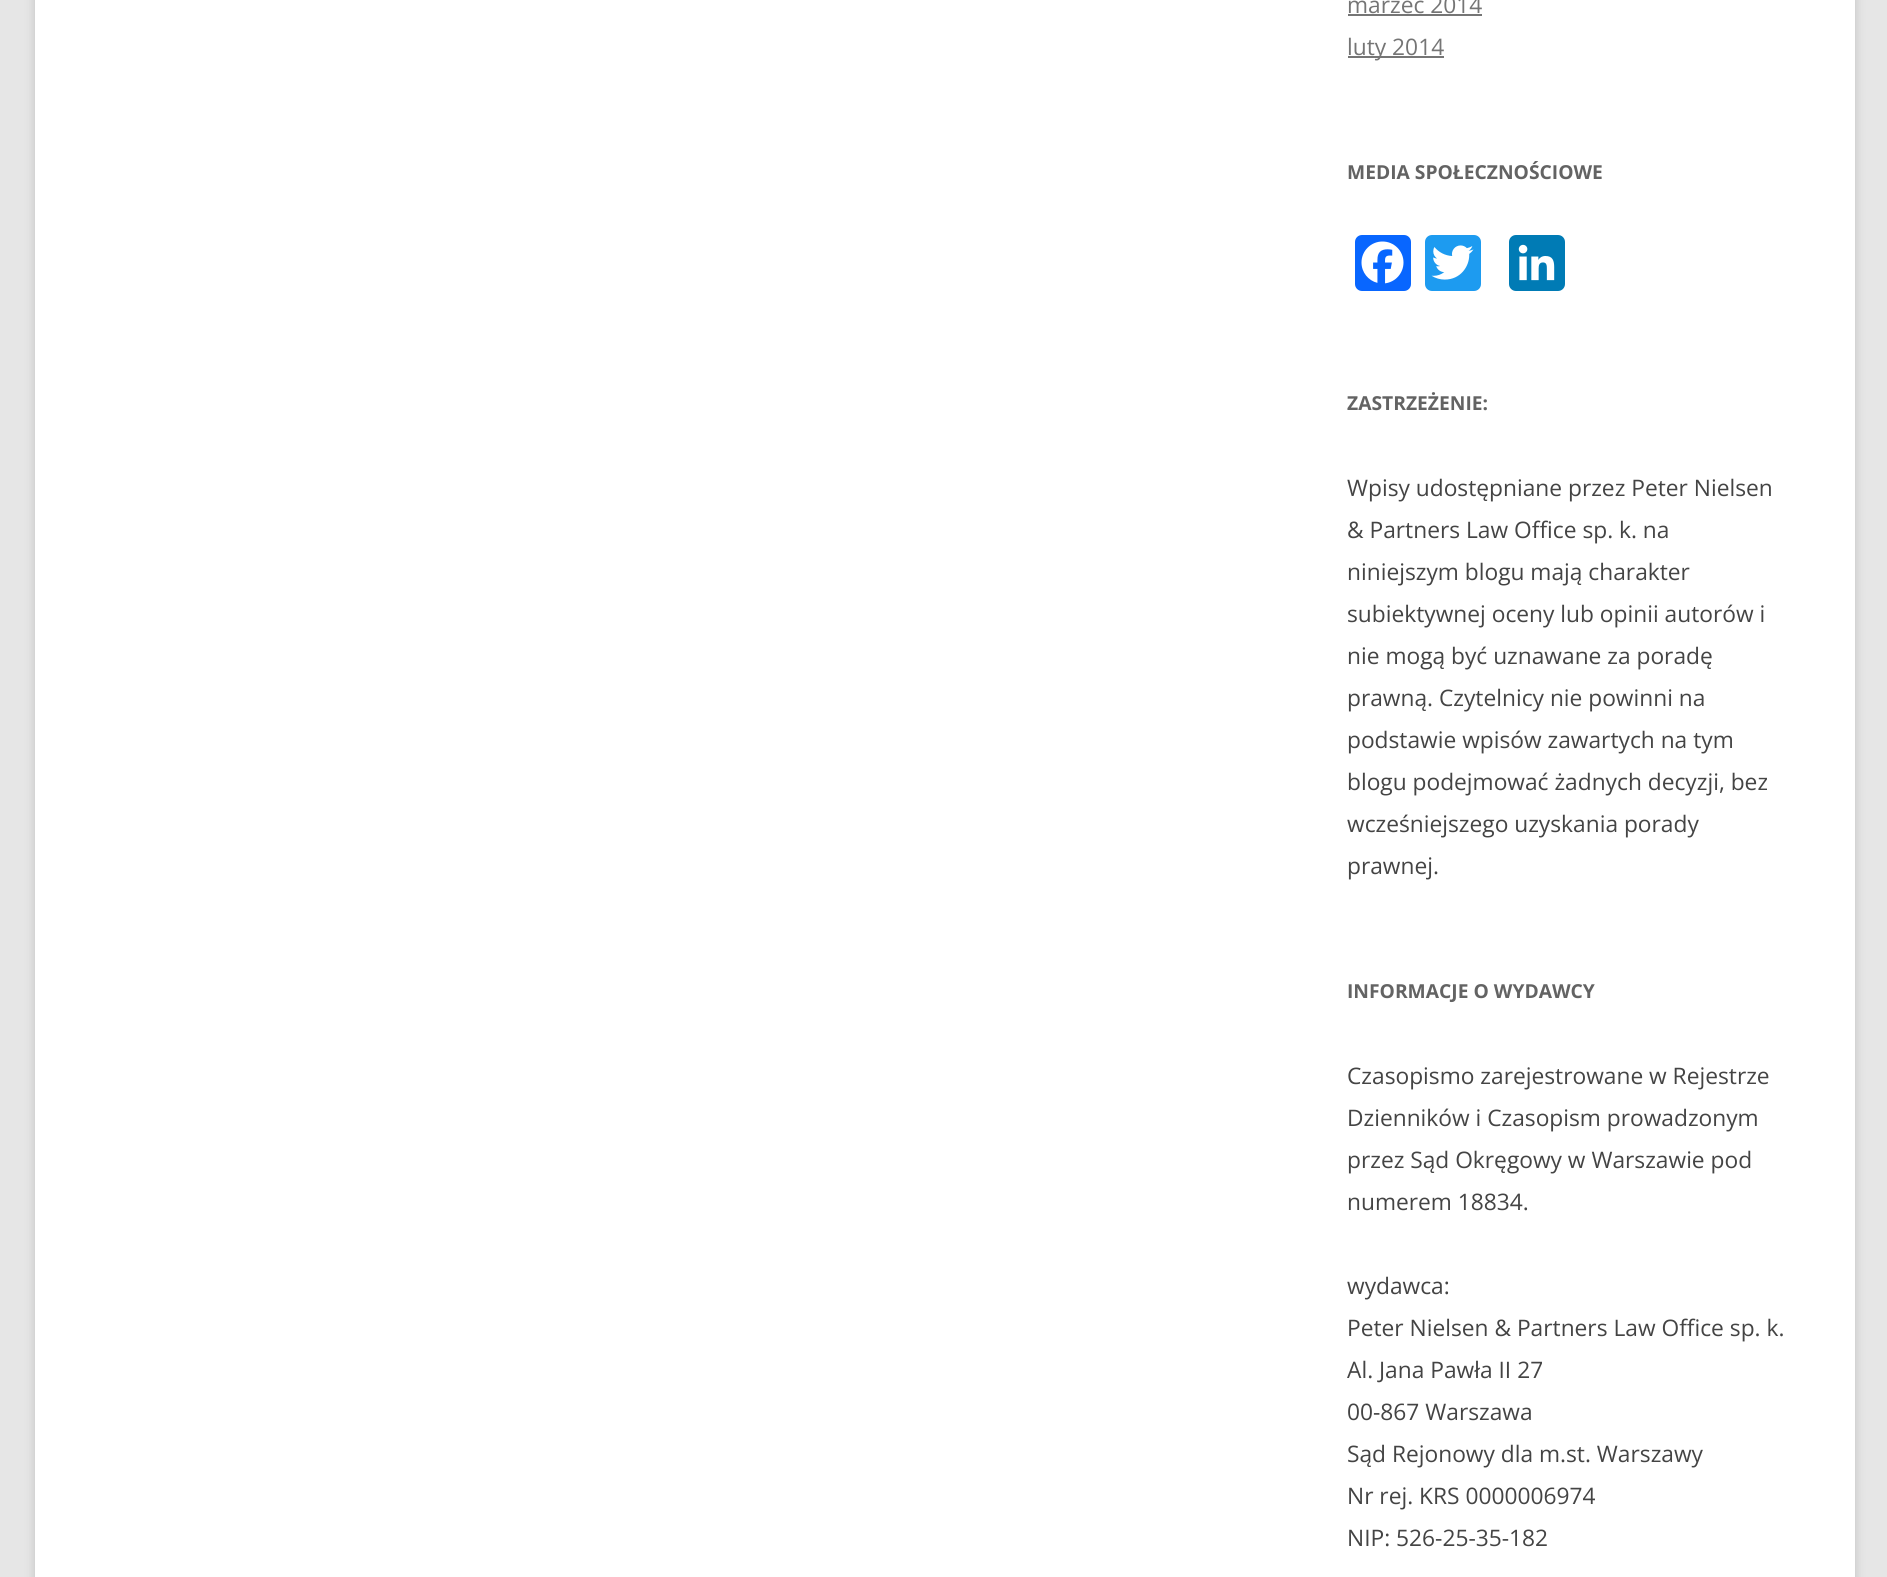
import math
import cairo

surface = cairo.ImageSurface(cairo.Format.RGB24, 1887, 1577)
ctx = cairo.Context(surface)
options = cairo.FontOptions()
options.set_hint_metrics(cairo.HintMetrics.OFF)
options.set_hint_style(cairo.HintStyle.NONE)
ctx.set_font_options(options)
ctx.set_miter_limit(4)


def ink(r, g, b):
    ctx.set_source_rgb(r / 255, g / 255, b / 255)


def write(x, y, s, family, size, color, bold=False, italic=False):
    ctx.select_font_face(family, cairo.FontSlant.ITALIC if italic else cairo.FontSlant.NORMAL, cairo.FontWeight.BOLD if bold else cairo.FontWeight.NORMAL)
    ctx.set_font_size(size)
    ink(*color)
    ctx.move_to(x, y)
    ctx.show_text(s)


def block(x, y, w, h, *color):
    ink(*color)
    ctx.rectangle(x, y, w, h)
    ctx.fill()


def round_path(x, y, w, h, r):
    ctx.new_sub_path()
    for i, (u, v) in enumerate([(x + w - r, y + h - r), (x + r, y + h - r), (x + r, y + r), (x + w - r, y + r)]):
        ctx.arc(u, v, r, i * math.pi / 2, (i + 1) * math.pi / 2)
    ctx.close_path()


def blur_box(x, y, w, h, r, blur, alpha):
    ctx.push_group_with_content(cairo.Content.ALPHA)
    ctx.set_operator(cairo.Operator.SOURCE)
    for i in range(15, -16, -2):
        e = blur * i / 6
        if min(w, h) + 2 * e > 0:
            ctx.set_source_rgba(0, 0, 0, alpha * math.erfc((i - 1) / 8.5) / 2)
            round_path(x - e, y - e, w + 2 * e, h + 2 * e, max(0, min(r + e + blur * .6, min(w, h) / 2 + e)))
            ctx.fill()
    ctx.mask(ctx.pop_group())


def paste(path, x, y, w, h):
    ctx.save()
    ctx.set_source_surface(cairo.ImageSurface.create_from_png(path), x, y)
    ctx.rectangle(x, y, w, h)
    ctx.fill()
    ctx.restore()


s1 = dict(family="Open Sans", size=22.75, color=(117, 117, 117))
s2 = dict(family="Open Sans", size=19.25, color=(99, 99, 99), bold=True)
s3 = dict(family="Open Sans", size=22.75, color=(68, 68, 68))

ink(230, 230, 230)
ctx.paint()
ink(100, 100, 100)
blur_box(35, -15, 1820, 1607, 0, 5, 0.3)
block(35, 0, 1820, 1577, 255, 255, 255)
write(1347, 13, "marzec 2014", **s1)
block(1348, 14, 134, 2, 117, 117, 117)
block(1348, 56, 96, 2, 117, 117, 117)
write(1347, 55, "luty 2014", **s1)
write(1347, 179, "MEDIA SPOŁECZNOŚCIOWE", **s2)
ink(8, 102, 255)
round_path(1355, 235, 56, 56, 7)
ctx.fill()
paste("pic1.png", 1361, 241, 43, 43)
ink(29, 155, 240)
round_path(1425, 235, 56, 56, 7)
ctx.fill()
paste("pic2.png", 1431, 245, 43, 35)
ink(0, 123, 181)
round_path(1509, 235, 56, 56, 7)
ctx.fill()
paste("pic3.png", 1518, 244, 37, 37)
write(1347, 410, "ZASTRZEŻENIE:", **s2)
write(1347, 496, "Wpisy udostępniane przez Peter Nielsen", **s3)
write(1347, 538, "& Partners Law Office sp. k. na", **s3)
write(1347, 580, "niniejszym blogu mają charakter", **s3)
write(1347, 622, "subiektywnej oceny lub opinii autorów i", **s3)
write(1347, 664, "nie mogą być uznawane za poradę", **s3)
write(1347, 706, "prawną. Czytelnicy nie powinni na", **s3)
write(1347, 748, "podstawie wpisów zawartych na tym", **s3)
write(1347, 790, "blogu podejmować żadnych decyzji, bez", **s3)
write(1347, 832, "wcześniejszego uzyskania porady", **s3)
write(1347, 874, "prawnej.", **s3)
write(1347, 998, "INFORMACJE O WYDAWCY", **s2)
write(1347, 1084, "Czasopismo zarejestrowane w Rejestrze", **s3)
write(1347, 1126, "Dzienników i Czasopism prowadzonym", **s3)
write(1347, 1168, "przez Sąd Okręgowy w Warszawie pod", **s3)
write(1347, 1210, "numerem 18834.", **s3)
write(1347, 1294, "wydawca:", **s3)
write(1347, 1336, "Peter Nielsen & Partners Law Office sp. k.", **s3)
write(1347, 1378, "Al. Jana Pawła II 27", **s3)
write(1347, 1420, "00-867 Warszawa", **s3)
write(1347, 1462, "Sąd Rejonowy dla m.st. Warszawy", **s3)
write(1347, 1504, "Nr rej. KRS 0000006974", **s3)
write(1347, 1546, "NIP: 526-25-35-182", **s3)
surface.write_to_png("screenshot.png")
